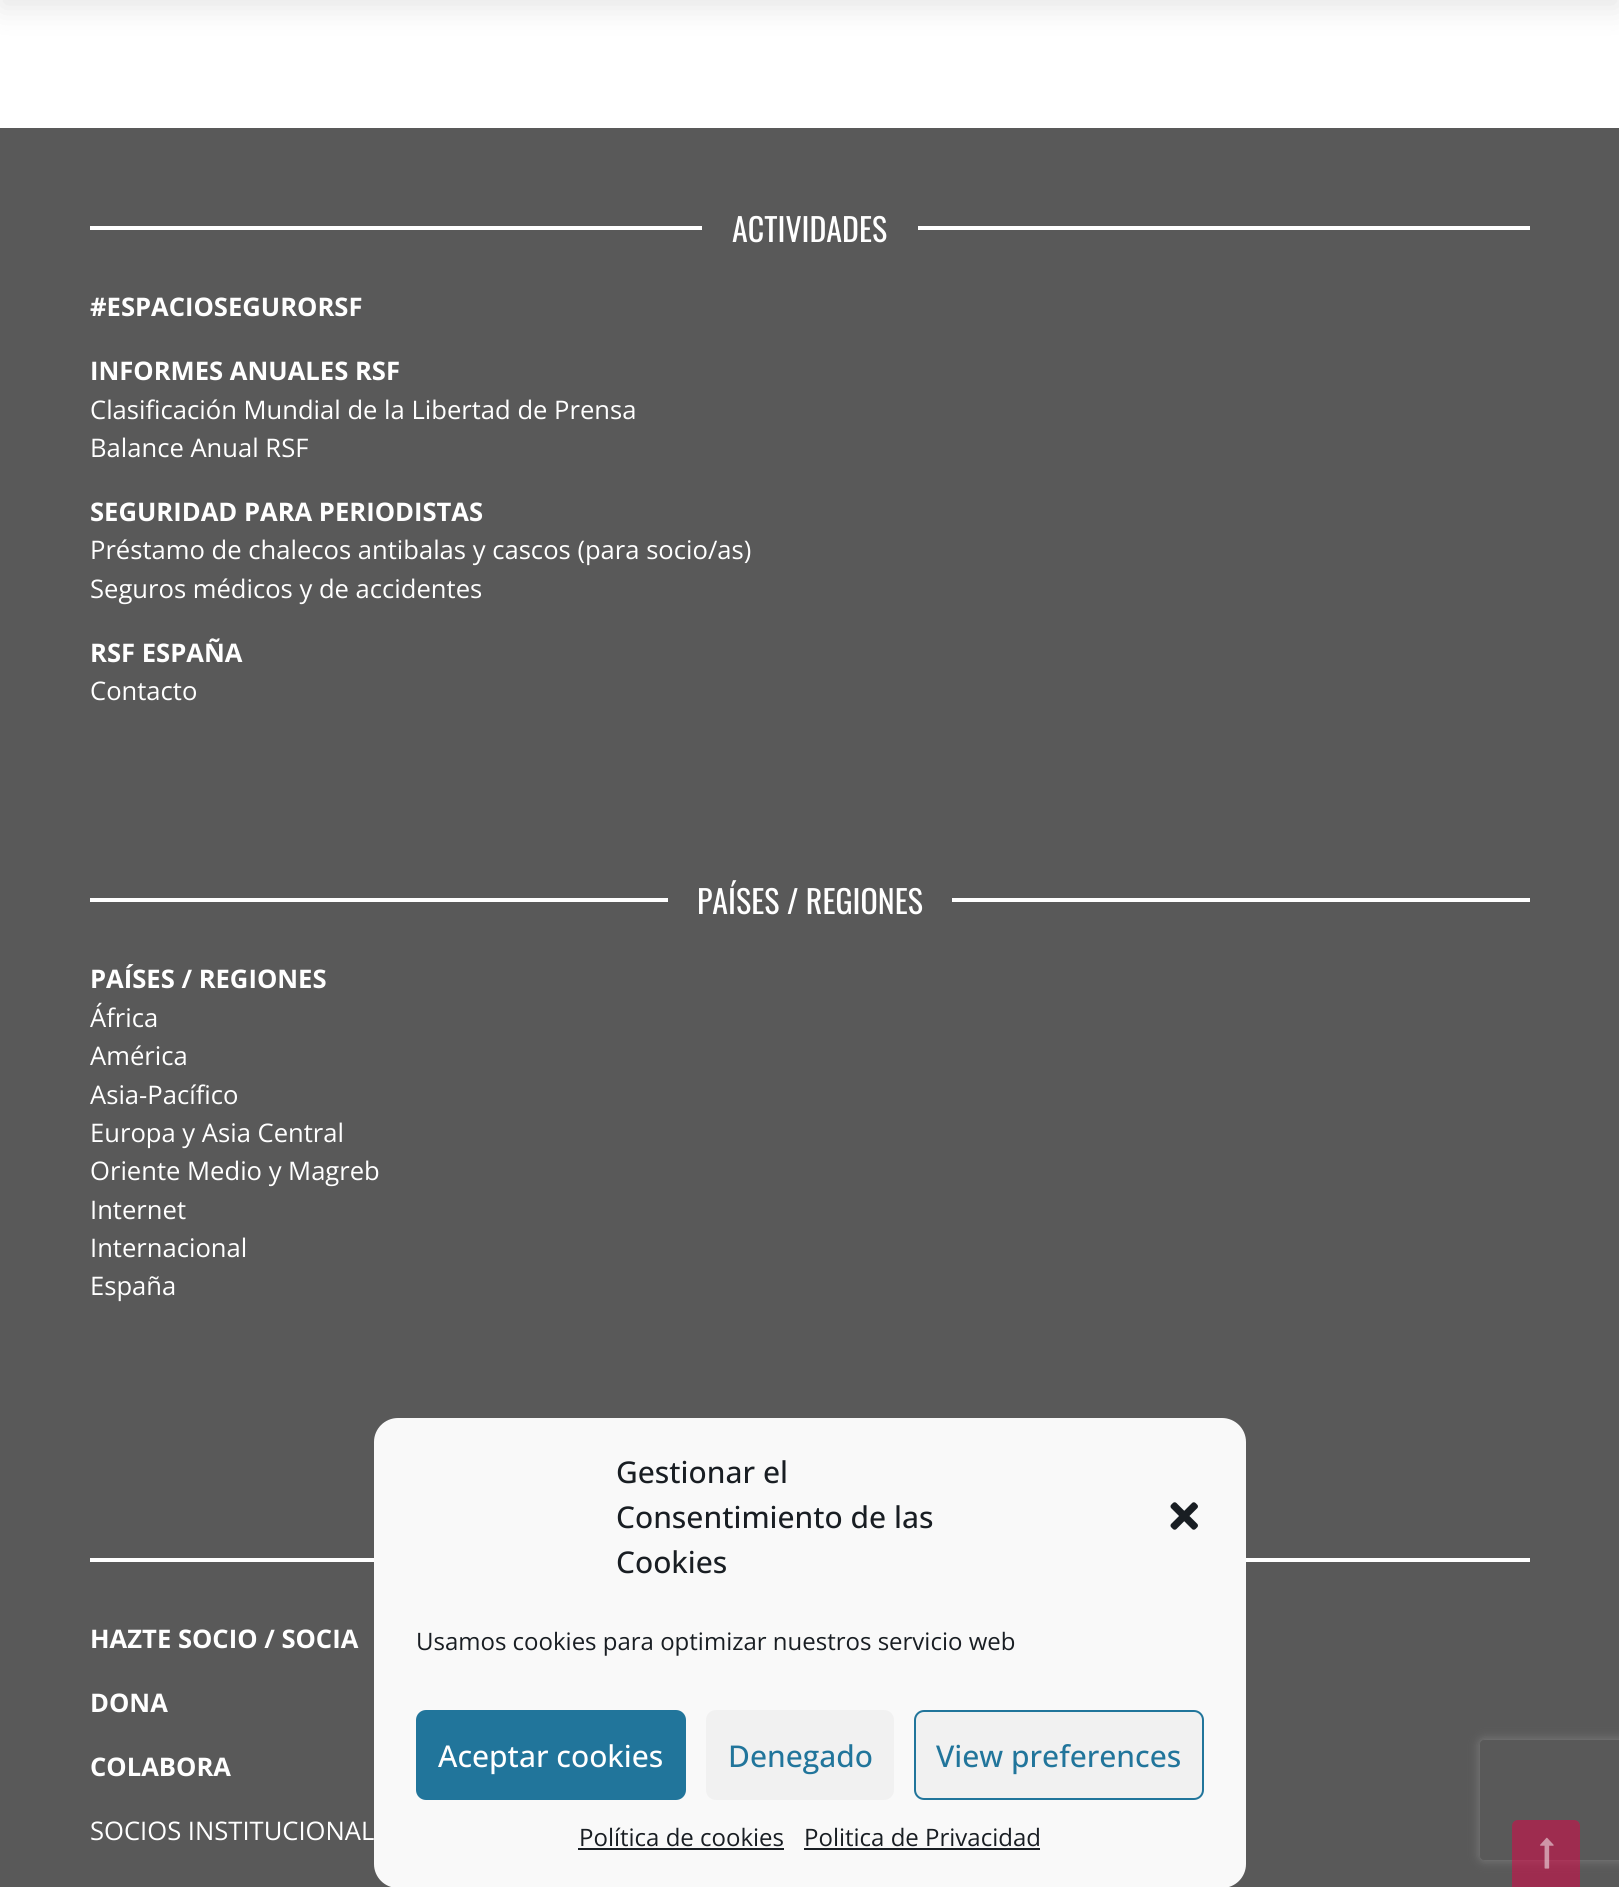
import math
import cairo

surface = cairo.ImageSurface(cairo.Format.RGB24, 1619, 1887)
ctx = cairo.Context(surface)
options = cairo.FontOptions()
options.set_hint_metrics(cairo.HintMetrics.OFF)
options.set_hint_style(cairo.HintStyle.NONE)
ctx.set_font_options(options)
ctx.set_miter_limit(4)


def ink(r, g, b):
    ctx.set_source_rgb(r / 255, g / 255, b / 255)


def write(x, y, s, family, size, color, bold=False, italic=False):
    ctx.select_font_face(family, cairo.FontSlant.ITALIC if italic else cairo.FontSlant.NORMAL, cairo.FontWeight.BOLD if bold else cairo.FontWeight.NORMAL)
    ctx.set_font_size(size)
    ink(*color)
    ctx.move_to(x, y)
    ctx.show_text(s)


def block(x, y, w, h, *color):
    ink(*color)
    ctx.rectangle(x, y, w, h)
    ctx.fill()


def round_path(x, y, w, h, r):
    ctx.new_sub_path()
    for i, (u, v) in enumerate([(x + w - r, y + h - r), (x + r, y + h - r), (x + r, y + r), (x + w - r, y + r)]):
        ctx.arc(u, v, r, i * math.pi / 2, (i + 1) * math.pi / 2)
    ctx.close_path()


def blur_box(x, y, w, h, r, blur, alpha):
    ctx.push_group_with_content(cairo.Content.ALPHA)
    ctx.set_operator(cairo.Operator.SOURCE)
    for i in range(15, -16, -2):
        e = blur * i / 6
        if min(w, h) + 2 * e > 0:
            ctx.set_source_rgba(0, 0, 0, alpha * math.erfc((i - 1) / 8.5) / 2)
            round_path(x - e, y - e, w + 2 * e, h + 2 * e, max(0, min(r + e + blur * .6, min(w, h) / 2 + e)))
            ctx.fill()
    ctx.mask(ctx.pop_group())


def paste(path, x, y, w, h):
    ctx.save()
    ctx.set_source_surface(cairo.ImageSurface.create_from_png(path), x, y)
    ctx.rectangle(x, y, w, h)
    ctx.fill()
    ctx.restore()


s1 = dict(family="Oswald", size=32, color=(255, 255, 255))
s2 = dict(family="Open Sans", size=25.6, color=(255, 255, 255), bold=True)
s3 = dict(family="Open Sans", size=25.6, color=(255, 255, 255))
s4 = dict(family="Open Sans Medium", size=30, color=(25, 30, 35))
s5 = dict(family="Open Sans", size=24, color=(25, 30, 35))
s6 = dict(family="Open Sans Medium", size=30, color=(255, 255, 255))
s7 = dict(family="Open Sans Medium", size=30, color=(33, 117, 155))

ink(255, 255, 255)
ctx.paint()
ink(0, 0, 0)
blur_box(0, -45, 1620, 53, 0, 15, 0.1)
block(0, 128, 1619, 1759, 89, 89, 89)
block(90, 226, 612, 4, 255, 255, 255)
write(732, 242, "ACTIVIDADES", **s1)
block(918, 226, 612, 4, 255, 255, 255)
write(90, 316, "#ESPACIOSEGURORSF", **s2)
write(90, 380, "INFORMES ANUALES RSF", **s2)
write(90, 419, "Clasificación Mundial de la Libertad de Prensa", **s3)
write(90, 457, "Balance Anual RSF", **s3)
write(90, 521, "SEGURIDAD PARA PERIODISTAS", **s2)
write(90, 559, "Préstamo de chalecos antibalas y cascos (para socio/as)", **s3)
write(90, 598, "Seguros médicos y de accidentes", **s3)
write(90, 662, "RSF ESPAÑA", **s2)
write(90, 700, "Contacto", **s3)
block(90, 898, 578, 4, 255, 255, 255)
write(697, 914, "PAÍSES / REGIONES", **s1)
block(952, 898, 578, 4, 255, 255, 255)
write(90, 988, "PAÍSES / REGIONES", **s2)
write(90, 1027, "África", **s3)
write(90, 1065, "América", **s3)
write(90, 1104, "Asia-Pacífico", **s3)
write(90, 1142, "Europa y Asia Central", **s3)
write(90, 1180, "Oriente Medio y Magreb", **s3)
write(90, 1219, "Internet", **s3)
write(90, 1257, "Internacional", **s3)
write(90, 1295, "España", **s3)
block(90, 1558, 284, 4, 255, 255, 255)
block(1246, 1558, 284, 4, 255, 255, 255)
write(90, 1648, "HAZTE SOCIO / SOCIA", **s2)
write(90, 1712, "DONA", **s2)
write(90, 1776, "COLABORA", **s2)
write(90, 1840, "SOCIOS INSTITUCIONAL", **s3)
ctx.save()
ctx.set_fill_rule(cairo.FillRule.EVEN_ODD)
ctx.new_path()
ctx.move_to(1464, 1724)
ctx.line_to(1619, 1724)
ctx.line_to(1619, 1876)
ctx.line_to(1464, 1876)
ctx.close_path()
ctx.move_to(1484, 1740)
ctx.line_to(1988, 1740)
ctx.curve_to(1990, 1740, 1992, 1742, 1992, 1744)
ctx.line_to(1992, 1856)
ctx.curve_to(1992, 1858, 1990, 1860, 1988, 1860)
ctx.line_to(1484, 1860)
ctx.curve_to(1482, 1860, 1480, 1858, 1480, 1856)
ctx.line_to(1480, 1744)
ctx.curve_to(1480, 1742, 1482, 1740, 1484, 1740)
ctx.close_path()
ctx.clip()
ink(128, 128, 128)
blur_box(1480, 1740, 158, 120, 4, 5, 1)
ctx.restore()
ctx.set_source_rgba(0.894, 0, 0.275, 0.5)
ctx.new_path()
ctx.move_to(1518, 1820)
ctx.line_to(1574, 1820)
ctx.curve_to(1577.5, 1820, 1580, 1822.5, 1580, 1826)
ctx.line_to(1580, 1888)
ctx.line_to(1512, 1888)
ctx.line_to(1512, 1826)
ctx.curve_to(1512, 1822.5, 1514.5, 1820, 1518, 1820)
ctx.close_path()
ctx.fill()
paste("pic1.png", 1540, 1837, 14, 32)
ink(249, 249, 249)
round_path(375, 1419, 870, 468, 23)
ctx.fill_preserve()
ctx.stroke()
write(616, 1483, "Gestionar el", **s4)
write(616, 1528, "Consentimiento de las", **s4)
write(616, 1573, "Cookies", **s4)
paste("pic2.png", 1170, 1502, 28, 28)
write(416, 1650, "Usamos cookies para optimizar nuestros servicio web", **s5)
ink(33, 117, 155)
round_path(417, 1711, 268, 88, 9)
ctx.fill_preserve()
ctx.stroke()
write(438, 1767, "Aceptar cookies", **s6)
ink(241, 241, 241)
round_path(706, 1710, 188, 90, 10)
ctx.fill()
write(728, 1767, "Denegado", **s7)
ink(241, 241, 241)
round_path(915, 1711, 288, 88, 9)
ctx.fill_preserve()
ink(33, 117, 155)
ctx.stroke()
write(936, 1767, "View preferences", **s7)
write(579, 1846, "Política de cookies", **s5)
block(578, 1848, 206, 2, 25, 30, 35)
write(804, 1846, "Politica de Privacidad", **s5)
block(804, 1848, 236, 2, 25, 30, 35)
surface.write_to_png("screenshot.png")
